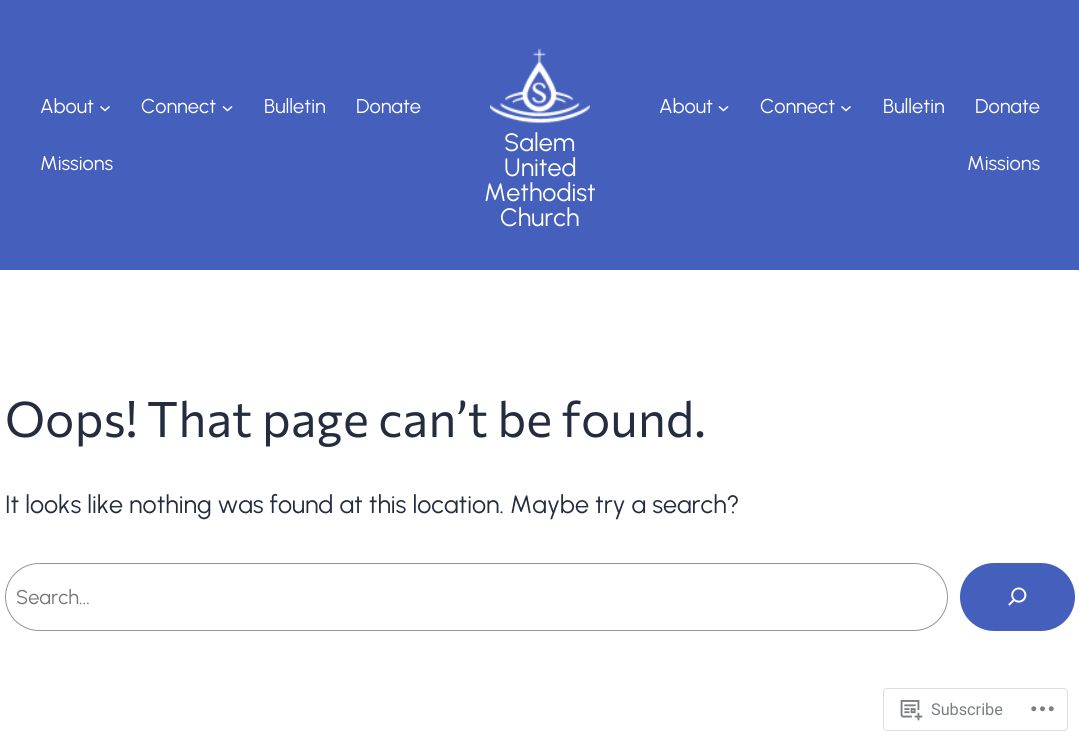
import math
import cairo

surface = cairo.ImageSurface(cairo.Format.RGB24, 1079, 743)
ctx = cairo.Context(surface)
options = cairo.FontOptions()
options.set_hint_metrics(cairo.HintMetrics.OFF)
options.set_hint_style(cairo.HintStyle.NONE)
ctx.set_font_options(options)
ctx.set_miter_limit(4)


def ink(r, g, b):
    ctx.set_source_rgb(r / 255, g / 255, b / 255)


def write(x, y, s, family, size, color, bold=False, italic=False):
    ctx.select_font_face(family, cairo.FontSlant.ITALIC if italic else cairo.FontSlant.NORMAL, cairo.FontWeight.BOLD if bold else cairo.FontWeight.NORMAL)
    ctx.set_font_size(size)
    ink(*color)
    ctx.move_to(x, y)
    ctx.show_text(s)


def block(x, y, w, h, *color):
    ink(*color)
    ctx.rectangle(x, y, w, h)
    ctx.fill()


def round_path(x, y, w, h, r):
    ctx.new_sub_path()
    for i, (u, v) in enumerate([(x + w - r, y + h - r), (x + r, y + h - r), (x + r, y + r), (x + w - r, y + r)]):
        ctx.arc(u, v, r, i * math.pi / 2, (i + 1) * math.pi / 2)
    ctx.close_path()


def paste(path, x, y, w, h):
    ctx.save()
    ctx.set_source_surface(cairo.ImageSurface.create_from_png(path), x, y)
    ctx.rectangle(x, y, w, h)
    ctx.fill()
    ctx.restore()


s1 = dict(family="Urbanist", size=20, color=(255, 255, 255))
s2 = dict(family="Urbanist", size=25.1, color=(255, 255, 255))
s3 = dict(family="Commissioner", size=49.1, color=(35, 45, 63))
s4 = dict(family="Urbanist", size=25.1, color=(35, 45, 63))
s5 = dict(family="Urbanist", size=20, color=(117, 117, 117))
s6 = dict(family="Roboto", size=16.25, color=(123, 127, 133))

ink(255, 255, 255)
ctx.paint()
block(0, 0, 1079, 270, 69, 95, 188)
write(40, 113, "About", **s1)
ctx.new_path()
ctx.move_to(100.5, 106.5)
ctx.line_to(105, 110.5)
ctx.line_to(109.5, 106.5)
ctx.set_line_width(1.5)
ctx.stroke()
write(141, 113, "Connect", **s1)
ctx.new_path()
ctx.move_to(223, 106.5)
ctx.line_to(227.5, 110.5)
ctx.line_to(232, 106.5)
ctx.stroke()
write(264, 113, "Bulletin", **s1)
write(356, 113, "Donate", **s1)
write(40, 170, "Missions", **s1)
paste("pic1.png", 490, 48, 100, 76)
write(504, 151, "Salem", **s2)
write(504, 176, "United", **s2)
write(484, 201, "Methodist", **s2)
write(500, 226, "Church", **s2)
write(659, 113, "About", **s1)
ctx.new_path()
ctx.move_to(719, 106.5)
ctx.line_to(723.5, 110.5)
ctx.line_to(728, 106.5)
ctx.stroke()
write(760, 113, "Connect", **s1)
ctx.new_path()
ctx.move_to(841.5, 106.5)
ctx.line_to(846, 110.5)
ctx.line_to(850.5, 106.5)
ctx.stroke()
write(883, 113, "Bulletin", **s1)
write(975, 113, "Donate", **s1)
write(967, 170, "Missions", **s1)
write(5, 437, "Oops! That page can’t be found.", **s3)
write(5, 513, "It looks like nothing was found at this location. Maybe try a search?", **s4)
round_path(5.5, 563.5, 942, 67, 33.5)
ink(148, 148, 148)
ctx.set_line_width(1)
ctx.stroke()
write(16, 604, "Search...", **s5)
ink(69, 95, 188)
round_path(960, 563, 115, 68, 34)
ctx.fill()
paste("pic2.png", 1008, 587, 19, 19)
round_path(883.5, 688.5, 184, 42, 3.5)
ink(221, 221, 223)
ctx.stroke()
paste("pic3.png", 900, 700, 23, 21)
write(931, 715, "Subscribe", **s6)
paste("pic4.png", 1031, 706, 23, 6)
surface.write_to_png("screenshot.png")
